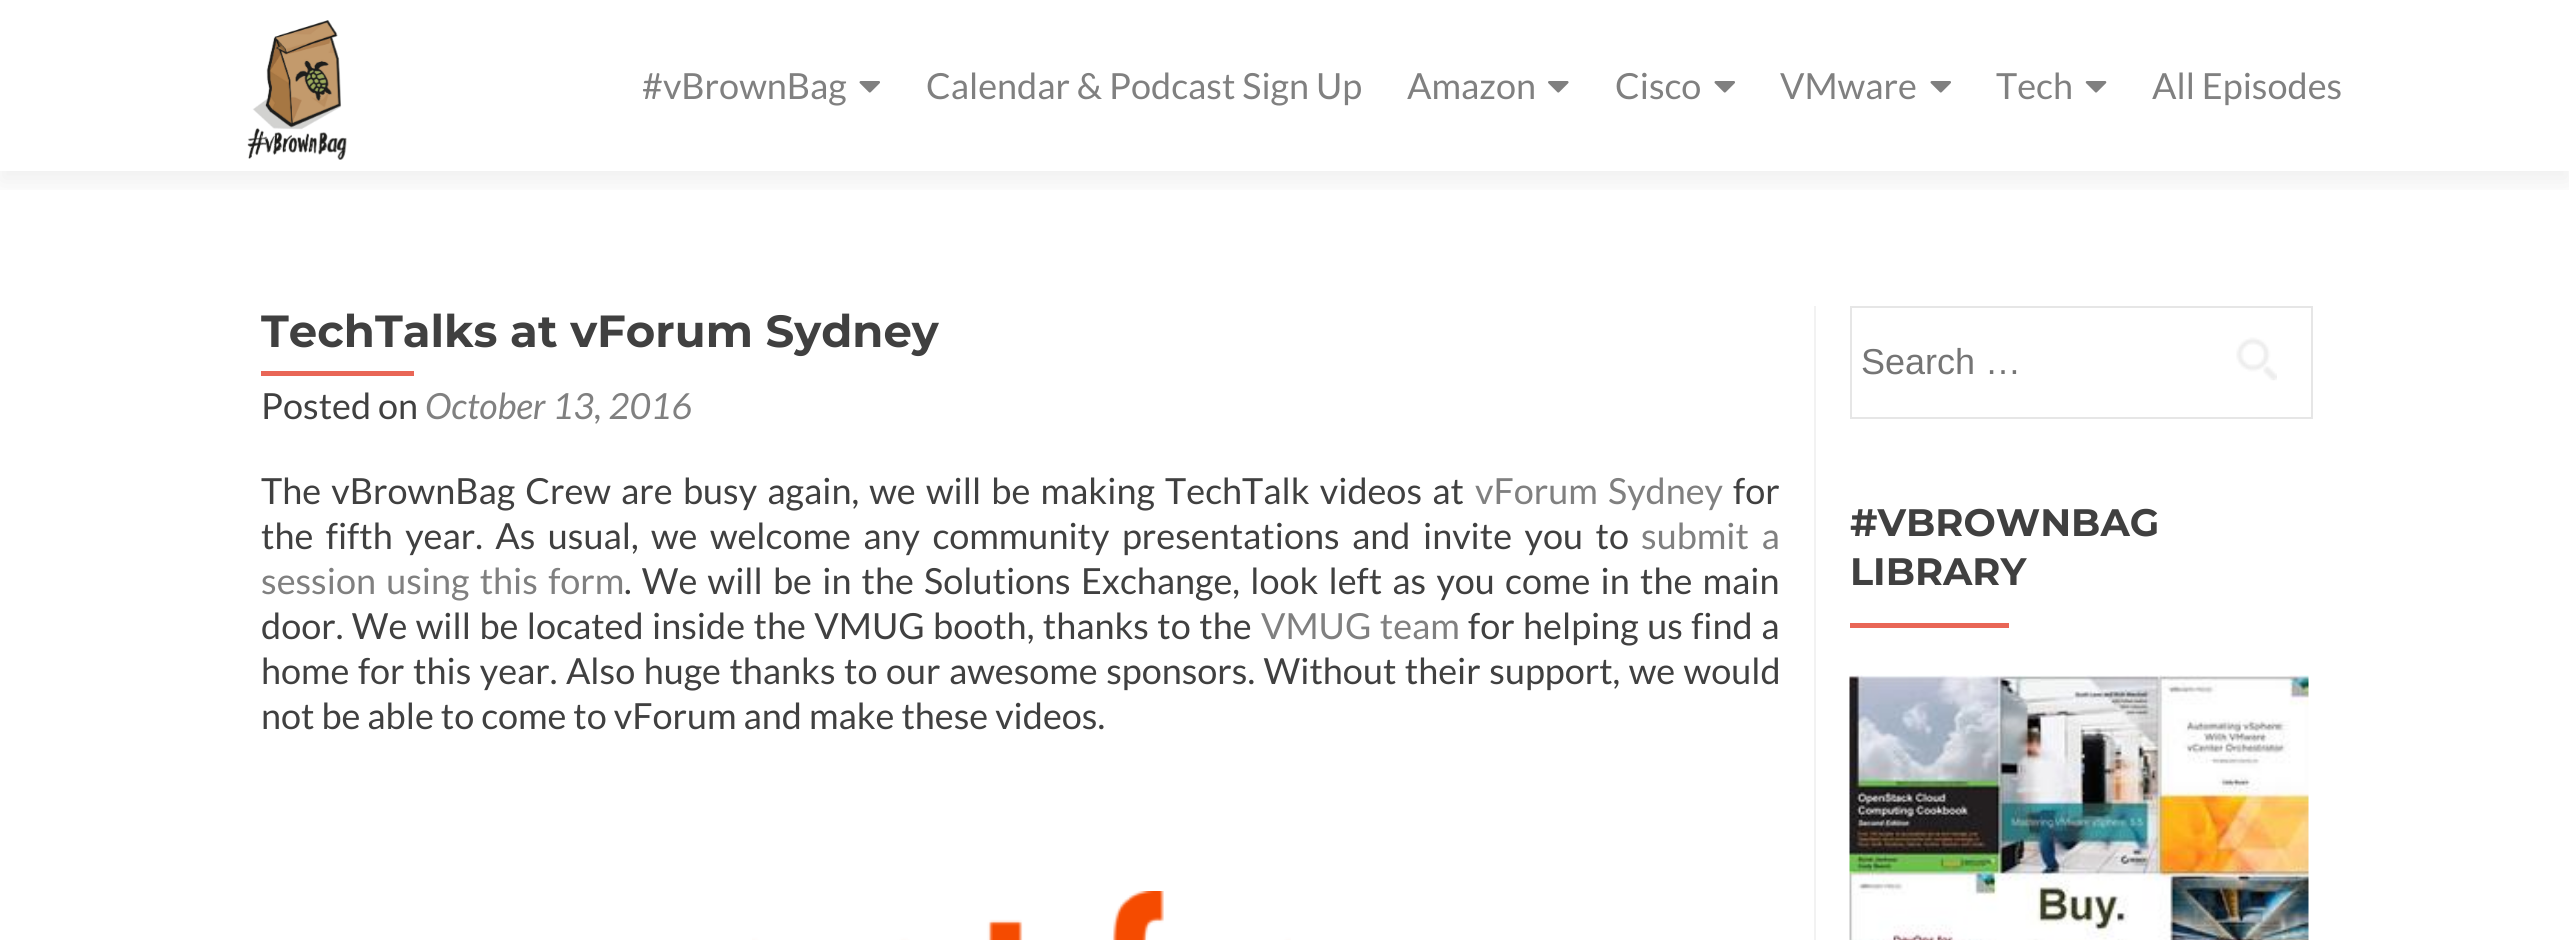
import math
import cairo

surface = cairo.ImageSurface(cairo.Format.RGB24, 2569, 940)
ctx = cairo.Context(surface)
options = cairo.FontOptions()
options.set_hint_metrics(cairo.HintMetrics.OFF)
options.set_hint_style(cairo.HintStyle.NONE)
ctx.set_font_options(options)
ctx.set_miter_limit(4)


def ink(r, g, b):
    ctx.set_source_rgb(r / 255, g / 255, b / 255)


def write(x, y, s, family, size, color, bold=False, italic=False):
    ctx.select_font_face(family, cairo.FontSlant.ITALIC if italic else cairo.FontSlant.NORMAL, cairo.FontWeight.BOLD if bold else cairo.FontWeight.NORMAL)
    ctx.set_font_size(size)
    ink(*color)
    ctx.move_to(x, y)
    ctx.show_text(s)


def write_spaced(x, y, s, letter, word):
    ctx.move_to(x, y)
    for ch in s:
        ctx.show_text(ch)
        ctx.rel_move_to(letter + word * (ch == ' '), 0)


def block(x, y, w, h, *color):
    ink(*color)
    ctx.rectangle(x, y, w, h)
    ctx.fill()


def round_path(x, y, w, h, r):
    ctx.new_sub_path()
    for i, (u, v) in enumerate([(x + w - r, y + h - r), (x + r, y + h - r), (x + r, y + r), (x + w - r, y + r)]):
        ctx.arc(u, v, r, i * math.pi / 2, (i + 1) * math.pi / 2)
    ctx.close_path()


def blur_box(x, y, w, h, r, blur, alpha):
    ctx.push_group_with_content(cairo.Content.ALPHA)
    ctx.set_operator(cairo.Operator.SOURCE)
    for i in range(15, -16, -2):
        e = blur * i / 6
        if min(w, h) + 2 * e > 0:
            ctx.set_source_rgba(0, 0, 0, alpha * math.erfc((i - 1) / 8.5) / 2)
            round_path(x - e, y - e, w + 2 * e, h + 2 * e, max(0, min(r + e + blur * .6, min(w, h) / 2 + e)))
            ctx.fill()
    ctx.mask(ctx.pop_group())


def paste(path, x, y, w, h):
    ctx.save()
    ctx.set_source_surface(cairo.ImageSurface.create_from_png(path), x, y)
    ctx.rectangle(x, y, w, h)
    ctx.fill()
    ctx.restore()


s1 = dict(family="Lato", size=36, color=(128, 128, 128))
s2 = dict(family="Montserrat Thin", size=45, color=(64, 64, 64))
s3 = dict(family="Lato", size=36, color=(64, 64, 64))
s4 = dict(family="Lato", size=36, color=(128, 128, 128), italic=True)
s5 = dict(family="Liberation Sans", size=36, color=(117, 117, 117))
s6 = dict(family="Montserrat Thin", size=38.25, color=(64, 64, 64))

ink(255, 255, 255)
ctx.paint()
ctx.save()
ctx.rectangle(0, 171, 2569, 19)
ctx.clip()
ink(50, 50, 50)
blur_box(0, 11, 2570, 171, 0, 12.5, 0.08)
ctx.restore()
paste("pic1.png", 247, 20, 100, 140)
write(642, 99, "#vBrownBag", **s1)
paste("pic2.png", 859, 81, 21, 12)
write(926, 99, "Calendar & Podcast Sign Up", **s1)
write(1407, 99, "Amazon", **s1)
paste("pic3.png", 1548, 81, 21, 12)
write(1615, 99, "Cisco", **s1)
paste("pic2.png", 1714, 81, 21, 12)
write(1780, 99, "VMware", **s1)
paste("pic2.png", 1930, 81, 21, 12)
write(1996, 99, "Tech", **s1)
paste("pic4.png", 2085, 81, 22, 12)
write(2152, 99, "All Episodes", **s1)
write(261, 347, "TechTalks at vForum Sydney", **s2)
block(261, 371, 153, 5, 233, 102, 86)
write(261, 419, "Posted on", **s3)
write(425, 419, "October 13, 2016", **s4)
ctx.select_font_face("Lato")
ink(64, 64, 64)
write_spaced(261, 504, "The vBrownBag Crew are busy again, we will be making TechTalk videos at", 0, 3.25)
ink(128, 128, 128)
write_spaced(1475, 504, "vForum Sydney", 0, 3.25)
write(1733, 504, "for", **s3)
write_spaced(261, 549, "the fifth year. As usual, we welcome any community presentations and invite you to", 0, 5.5)
ink(128, 128, 128)
write_spaced(1641, 549, "submit a", 0, 5.5)
write_spaced(261, 594, "session using this form", 0, 3.25)
ink(64, 64, 64)
write_spaced(624, 594, ". We will be in the Solutions Exchange, look left as you come in the main", 0, 3.25)
write_spaced(261, 639, "door. We will be located inside the VMUG booth, thanks to the", 0, 1.5)
ink(128, 128, 128)
write_spaced(1261, 639, "VMUG team", 0, 1.5)
ink(64, 64, 64)
write_spaced(1468, 639, "for helping us find a", 0, 1.5)
write_spaced(261, 684, "home for this year. Also huge thanks to our awesome sponsors. Without their support, we would", 0, 1.5)
write(261, 729, "not be able to come to vForum and make these videos.", **s3)
paste("pic5.png", 752, 891, 539, 49)
block(1814, 306, 2, 634, 242, 242, 242)
ctx.rectangle(1851, 307, 461, 111)
ink(230, 230, 230)
ctx.stroke()
write(1861, 374, "Search …", **s5)
paste("pic6.png", 2236, 337, 41, 44)
write(1850, 536, "#VBROWNBAG", **s6)
write(1850, 585, "LIBRARY", **s6)
block(1850, 623, 159, 5, 233, 102, 86)
paste("pic7.png", 1849, 675, 460, 265)
surface.write_to_png("screenshot.png")
